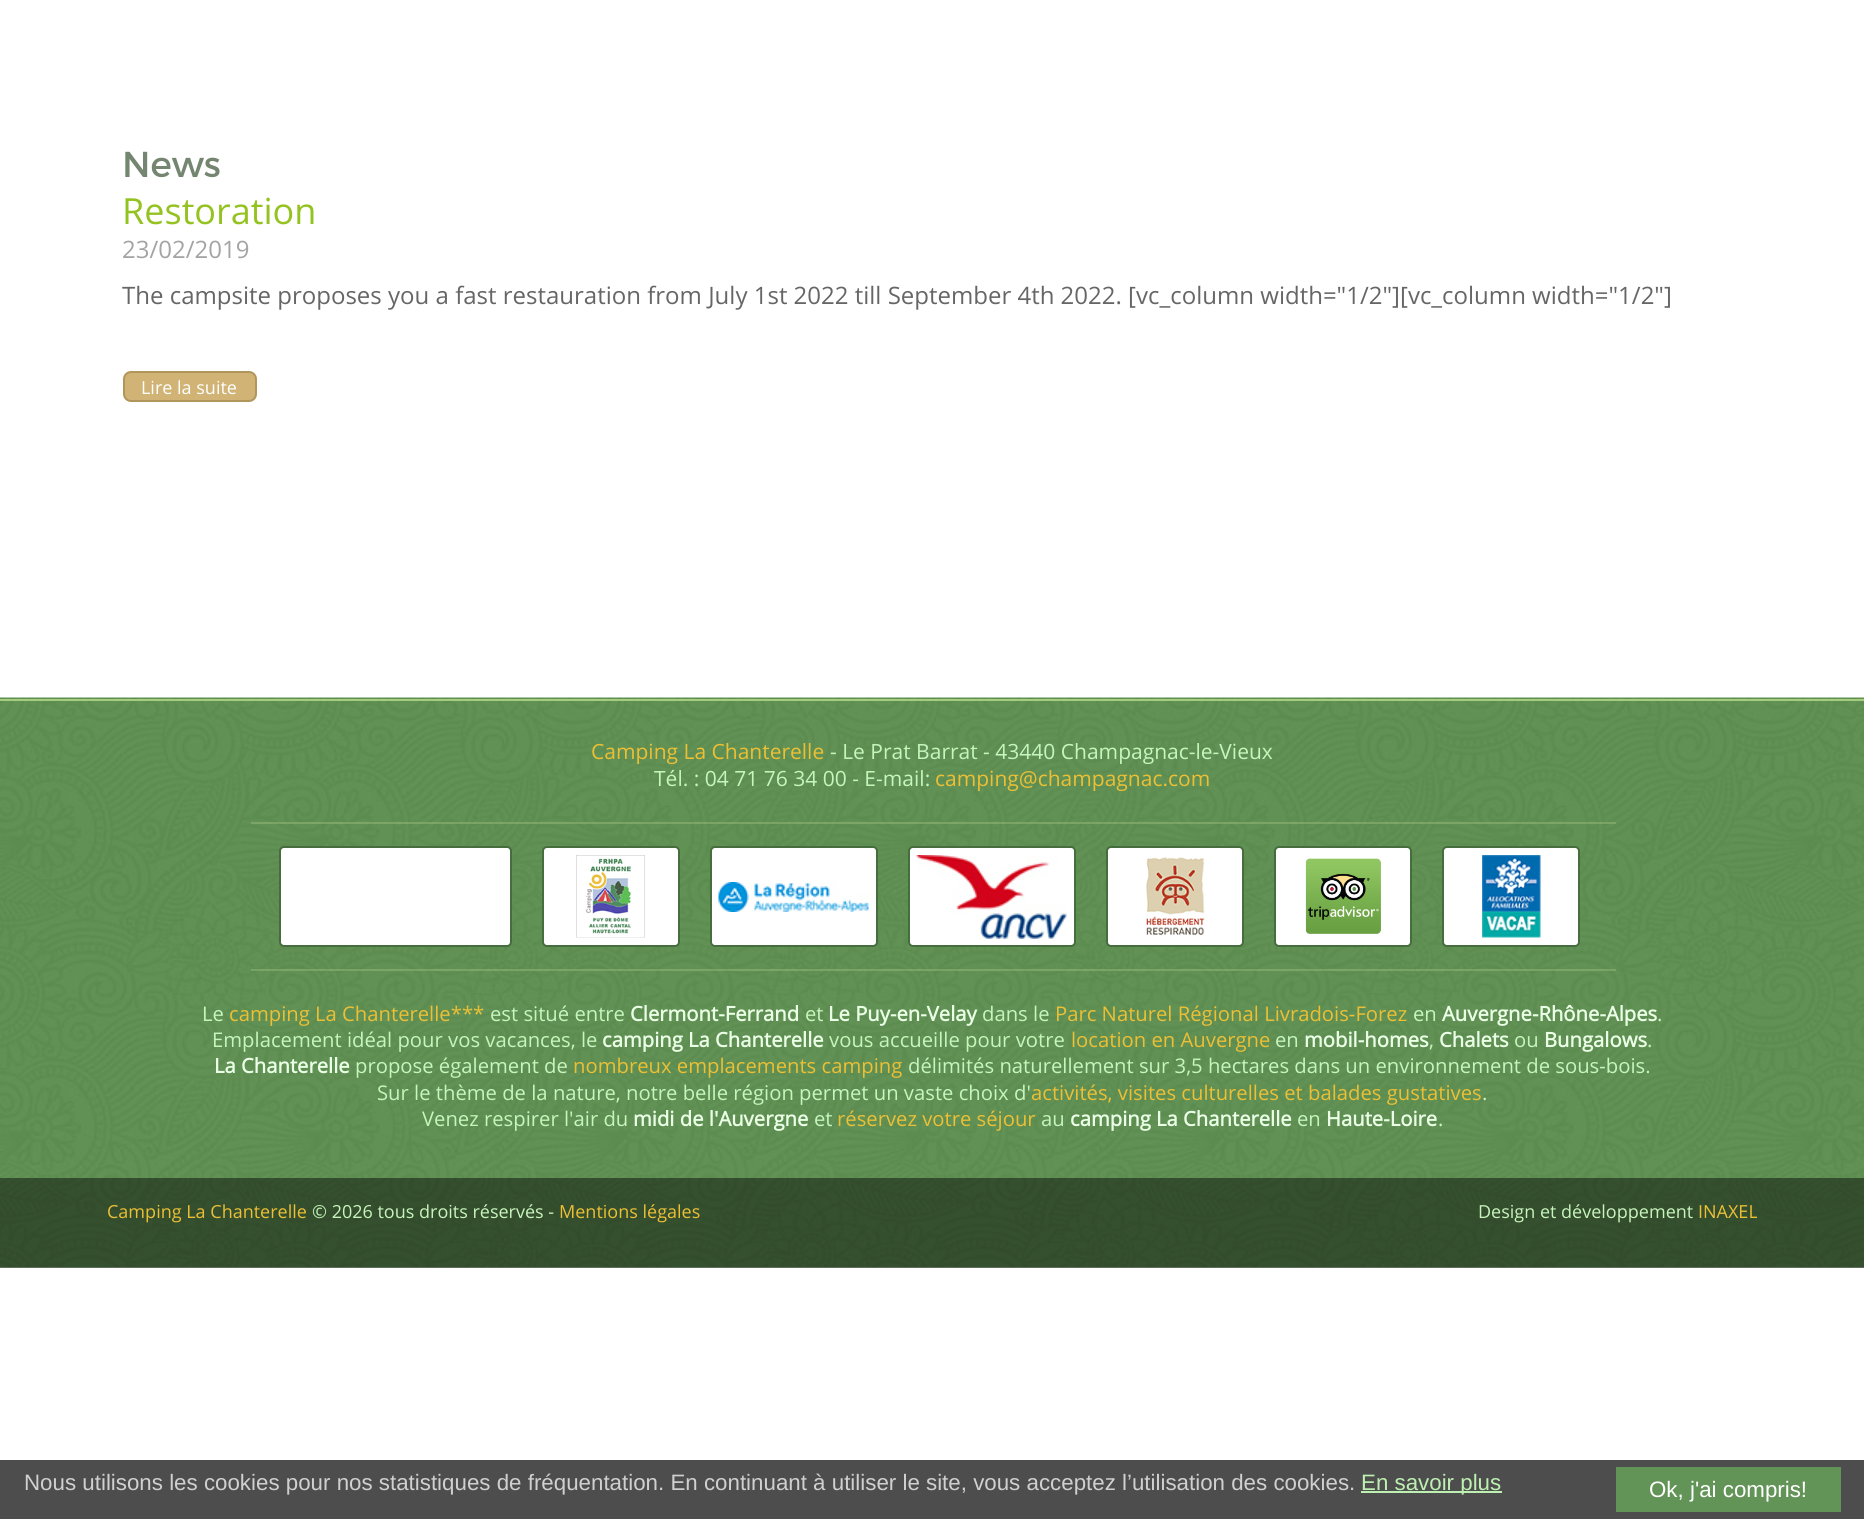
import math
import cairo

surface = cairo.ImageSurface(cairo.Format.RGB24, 1864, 1519)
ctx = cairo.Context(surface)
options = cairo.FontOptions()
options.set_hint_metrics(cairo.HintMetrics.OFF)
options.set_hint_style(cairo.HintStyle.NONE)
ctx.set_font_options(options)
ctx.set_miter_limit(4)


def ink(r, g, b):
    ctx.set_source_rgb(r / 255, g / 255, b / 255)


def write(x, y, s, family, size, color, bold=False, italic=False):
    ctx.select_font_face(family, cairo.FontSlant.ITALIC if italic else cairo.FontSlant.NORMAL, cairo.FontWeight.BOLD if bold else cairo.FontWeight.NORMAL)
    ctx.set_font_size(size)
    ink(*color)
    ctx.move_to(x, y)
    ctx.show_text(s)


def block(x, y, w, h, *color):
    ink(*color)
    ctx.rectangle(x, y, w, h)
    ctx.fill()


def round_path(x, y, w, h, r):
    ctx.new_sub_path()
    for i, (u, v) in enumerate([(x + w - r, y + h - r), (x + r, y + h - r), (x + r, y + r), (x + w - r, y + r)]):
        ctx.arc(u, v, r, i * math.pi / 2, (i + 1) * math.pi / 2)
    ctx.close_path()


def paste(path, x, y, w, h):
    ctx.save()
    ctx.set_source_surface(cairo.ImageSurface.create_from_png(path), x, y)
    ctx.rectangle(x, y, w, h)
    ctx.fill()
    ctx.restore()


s1 = dict(family="Montserrat", size=36, color=(116, 133, 112))
s2 = dict(family="Open Sans", size=36, color=(148, 195, 33))
s3 = dict(family="Open Sans", size=24, color=(164, 164, 164))
s4 = dict(family="Open Sans", size=24, color=(102, 102, 102))
s5 = dict(family="Open Sans", size=18, color=(255, 255, 255))
s6 = dict(family="Open Sans", size=21, color=(236, 191, 53))
s7 = dict(family="Open Sans", size=21, color=(200, 244, 189))
s8 = dict(family="Open Sans", size=20.25, color=(200, 244, 189))
s9 = dict(family="Open Sans", size=20.25, color=(236, 191, 53))
s10 = dict(family="Open Sans", size=20.25, color=(234, 255, 229), bold=True)
s11 = dict(family="Open Sans", size=18, color=(236, 191, 53))
s12 = dict(family="Open Sans", size=18, color=(200, 244, 189))
s13 = dict(family="Liberation Sans", size=22.32, color=(208, 208, 208))
s14 = dict(family="Liberation Sans", size=22.32, color=(189, 240, 177))
s15 = dict(family="Liberation Sans", size=22.32, color=(255, 255, 255))

ink(255, 255, 255)
ctx.paint()
write(122, 177, "News", **s1)
write(122, 224, "Restoration", **s2)
write(122, 258, "23/02/2019", **s3)
write(122, 304, "The campsite proposes you a fast restauration from July 1st 2022 till September 4th 2022. [vc_column width=\"1/2\"][vc_column width=\"1/2\"]", **s4)
ink(208, 179, 117)
round_path(124, 372, 132, 29, 7)
ctx.fill_preserve()
ink(177, 150, 92)
ctx.stroke()
write(141, 394, "Lire la suite", **s5)
paste("pic1.png", 0, 697, 1864, 571)
block(0, 699, 1864, 2, 164, 206, 126)
write(591, 759, "Camping La Chanterelle", **s6)
write(830, 759, "- Le Prat Barrat - 43440 Champagnac-le-Vieux", **s7)
write(654, 786, "Tél. : 04 71 76 34 00 - E-mail:", **s7)
write(935, 786, "camping@champagnac.com", **s6)
ctx.set_source_rgba(0.643, 0.78, 0.518, 0.4)
ctx.rectangle(251, 822, 1365, 2)
ctx.fill()
ctx.rectangle(251, 969, 1365, 2)
ctx.fill()
ink(255, 255, 255)
round_path(280, 847, 231, 99, 4)
ctx.fill_preserve()
ink(70, 109, 61)
ctx.stroke()
ink(255, 255, 255)
round_path(543, 847, 136, 99, 4)
ctx.fill_preserve()
ink(70, 109, 61)
ctx.stroke()
paste("pic2.png", 576, 855, 69, 83)
ink(255, 255, 255)
round_path(711, 847, 166, 99, 4)
ctx.fill_preserve()
ink(70, 109, 61)
ctx.stroke()
paste("pic3.png", 718, 882, 151, 30)
ink(255, 255, 255)
round_path(909, 847, 166, 99, 4)
ctx.fill_preserve()
ink(70, 109, 61)
ctx.stroke()
paste("pic4.png", 916, 855, 151, 84)
ink(255, 255, 255)
round_path(1107, 847, 136, 99, 4)
ctx.fill_preserve()
ink(70, 109, 61)
ctx.stroke()
paste("pic5.png", 1146, 857, 59, 78)
ink(255, 255, 255)
round_path(1275, 847, 136, 99, 4)
ctx.fill_preserve()
ink(70, 109, 61)
ctx.stroke()
paste("pic6.png", 1305, 858, 76, 76)
ink(255, 255, 255)
round_path(1443, 847, 136, 99, 4)
ctx.fill_preserve()
ink(70, 109, 61)
ctx.stroke()
paste("pic7.png", 1482, 855, 59, 83)
write(202, 1021, "Le", **s8)
write(229, 1021, "camping La Chanterelle***", **s9)
write(490, 1021, "est situé entre", **s8)
write(630, 1021, "Clermont-Ferrand", **s10)
write(805, 1021, "et", **s8)
write(828, 1021, "Le Puy-en-Velay", **s10)
write(982, 1021, "dans le", **s8)
write(1055, 1021, "Parc Naturel Régional Livradois-Forez", **s9)
write(1413, 1021, "en", **s8)
write(1442, 1021, "Auvergne-Rhône-Alpes", **s10)
write(1657, 1021, ".", **s8)
write(212, 1047, "Emplacement idéal pour vos vacances, le", **s8)
write(602, 1047, "camping La Chanterelle", **s10)
write(829, 1047, "vous accueille pour votre", **s8)
write(1071, 1047, "location en Auvergne", **s9)
write(1275, 1047, "en", **s8)
write(1304, 1047, "mobil-homes", **s10)
write(1429, 1047, ",", **s8)
write(1439, 1047, "Chalets", **s10)
write(1514, 1047, "ou", **s8)
write(1544, 1047, "Bungalows", **s10)
write(1647, 1047, ".", **s8)
write(214, 1073, "La Chanterelle", **s10)
write(355, 1073, "propose également de", **s8)
write(573, 1073, "nombreux emplacements camping", **s9)
write(908, 1073, "délimités naturellement sur 3,5 hectares dans un environnement de sous-bois.", **s8)
write(377, 1100, "Sur le thème de la nature, notre belle région permet un vaste choix d'", **s8)
write(1031, 1100, "activités, visites culturelles et balades gustatives", **s9)
write(1482, 1100, ".", **s8)
write(422, 1126, "Venez respirer l'air du", **s8)
write(633, 1126, "midi de l'Auvergne", **s10)
write(814, 1126, "et", **s8)
write(837, 1126, "réservez votre séjour", **s9)
write(1041, 1126, "au", **s8)
write(1070, 1126, "camping La Chanterelle", **s10)
write(1297, 1126, "en", **s8)
write(1326, 1126, "Haute-Loire", **s10)
write(1438, 1126, ".", **s8)
ctx.set_source_rgba(0, 0, 0, 0.45)
ctx.rectangle(0, 1178, 1864, 90)
ctx.fill()
write(107, 1218, "Camping La Chanterelle", **s11)
write(312, 1218, "© 2026 tous droits réservés -", **s12)
write(559, 1218, "Mentions légales", **s11)
write(1478, 1218, "Design et développement", **s12)
write(1698, 1218, "INAXEL", **s11)
block(0, 1460, 1864, 59, 77, 77, 77)
write(24, 1490, "Nous utilisons les cookies pour nos statistiques de fréquentation. En continuant à utiliser le site, vous acceptez l’utilisation des cookies.", **s13)
block(1361, 1491, 141, 2, 189, 240, 177)
write(1361, 1490, "En savoir plus", **s14)
block(1616, 1467, 225, 45, 99, 148, 87)
write(1649, 1497, "Ok, j'ai compris!", **s15)
surface.write_to_png("screenshot.png")
